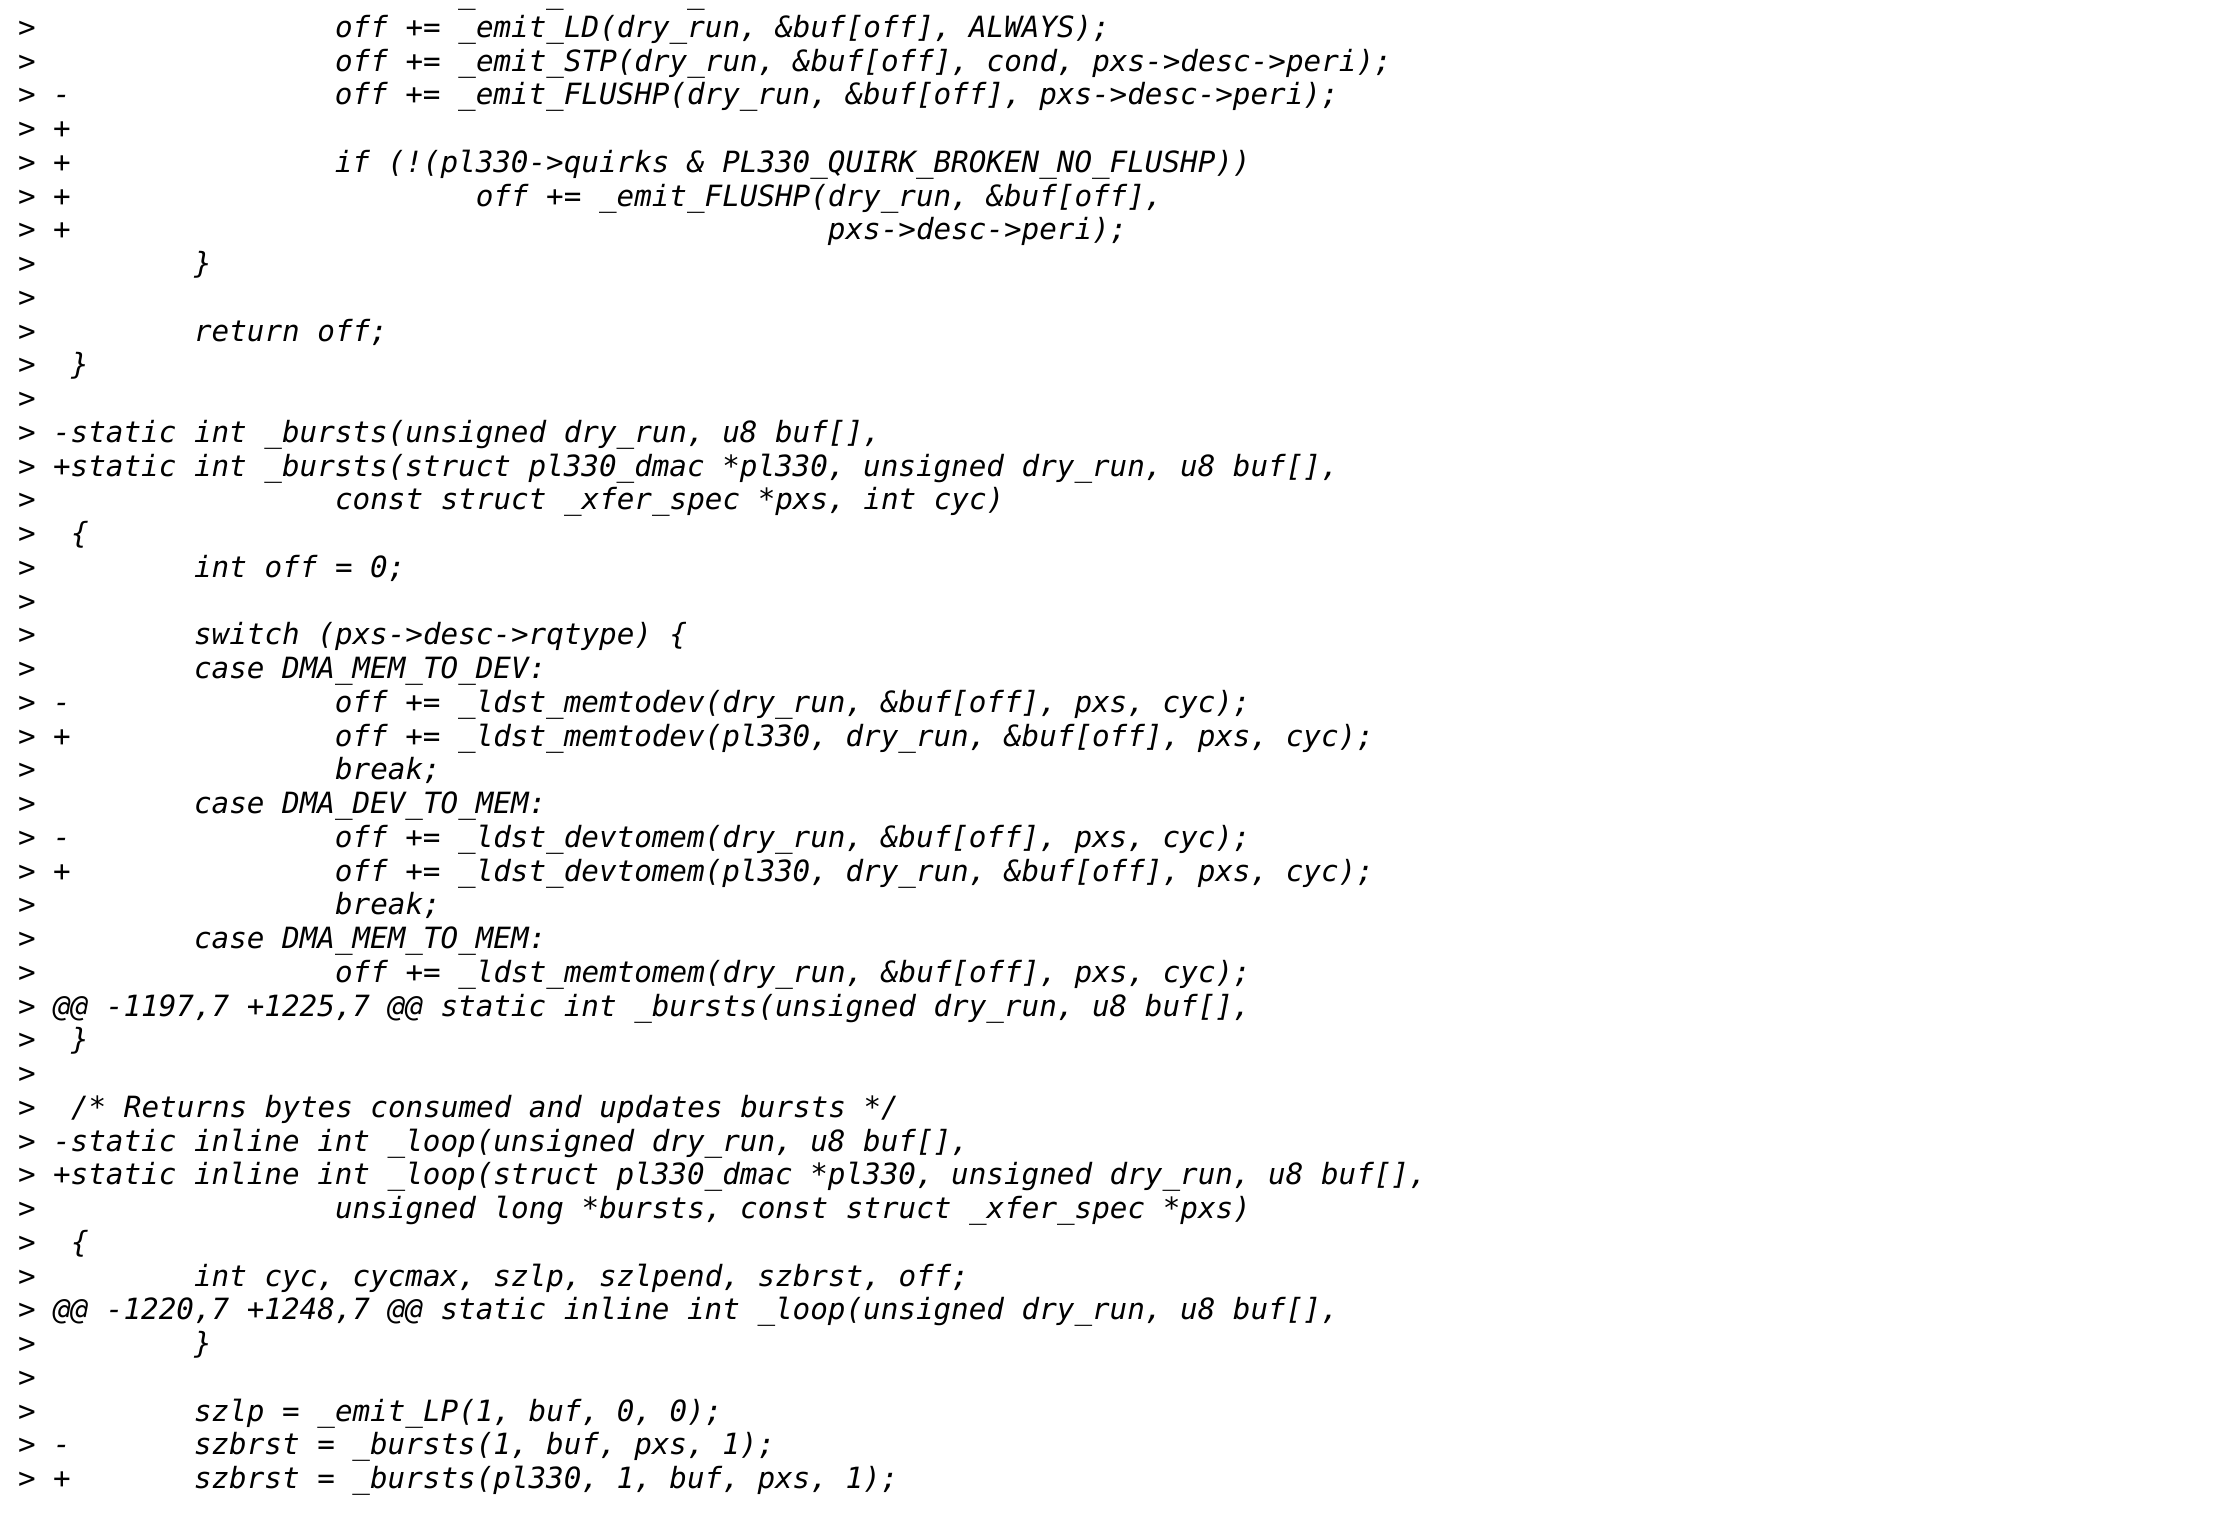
import math
import cairo

surface = cairo.ImageSurface(cairo.Format.RGB24, 2225, 1513)
ctx = cairo.Context(surface)
options = cairo.FontOptions()
options.set_hint_metrics(cairo.HintMetrics.OFF)
options.set_hint_style(cairo.HintStyle.NONE)
ctx.set_font_options(options)
ctx.set_miter_limit(4)


def ink(r, g, b):
    ctx.set_source_rgb(r / 255, g / 255, b / 255)


def write(x, y, s, family, size, color, bold=False, italic=False):
    ctx.select_font_face(family, cairo.FontSlant.ITALIC if italic else cairo.FontSlant.NORMAL, cairo.FontWeight.BOLD if bold else cairo.FontWeight.NORMAL)
    ctx.set_font_size(size)
    ink(*color)
    ctx.move_to(x, y)
    ctx.show_text(s)


s1 = dict(family="DejaVu Sans Mono", size=29.25, color=(0, 0, 0), italic=True)
s2 = dict(family="DejaVu Sans Mono", size=29.25, color=(0, 0, 0))

ink(255, 255, 255)
ctx.paint()
write(458, 3, "_", **s1)
write(546, 3, "_", **s1)
write(687, 3, "_", **s1)
write(18, 37, ">", **s2)
write(335, 37, "off += _emit_LD(dry_run, &buf[off], ALWAYS);", **s1)
write(18, 71, ">", **s2)
write(335, 71, "off += _emit_STP(dry_run, &buf[off], cond, pxs->desc->peri);", **s1)
write(18, 104, ">", **s2)
write(53, 104, "-               off += _emit_FLUSHP(dry_run, &buf[off], pxs->desc->peri);", **s1)
write(18, 138, ">", **s2)
write(53, 138, "+", **s1)
write(18, 172, ">", **s2)
write(53, 172, "+               if (!(pl330->quirks & PL330_QUIRK_BROKEN_NO_FLUSHP))", **s1)
write(18, 206, ">", **s2)
write(53, 206, "+                       off += _emit_FLUSHP(dry_run, &buf[off],", **s1)
write(18, 239, ">", **s2)
write(53, 239, "+                                           pxs->desc->peri);", **s1)
write(18, 273, ">", **s2)
write(194, 273, "}", **s1)
write(18, 307, ">", **s2)
write(18, 341, ">", **s2)
write(194, 341, "return off;", **s1)
write(18, 374, ">", **s2)
write(71, 374, "}", **s1)
write(18, 408, ">", **s2)
write(18, 442, ">", **s2)
write(53, 442, "-static int _bursts(unsigned dry_run, u8 buf[],", **s1)
write(18, 476, ">", **s2)
write(53, 476, "+static int _bursts(struct pl330_dmac *pl330, unsigned dry_run, u8 buf[],", **s1)
write(18, 509, ">", **s2)
write(335, 509, "const struct _xfer_spec *pxs, int cyc)", **s1)
write(18, 543, ">", **s2)
write(71, 543, "{", **s1)
write(18, 577, ">", **s2)
write(194, 577, "int off = 0;", **s1)
write(18, 611, ">", **s2)
write(18, 644, ">", **s2)
write(194, 644, "switch (pxs->desc->rqtype) {", **s1)
write(18, 678, ">", **s2)
write(194, 678, "case DMA_MEM_TO_DEV:", **s1)
write(18, 712, ">", **s2)
write(53, 712, "-               off += _ldst_memtodev(dry_run, &buf[off], pxs, cyc);", **s1)
write(18, 746, ">", **s2)
write(53, 746, "+               off += _ldst_memtodev(pl330, dry_run, &buf[off], pxs, cyc);", **s1)
write(18, 779, ">", **s2)
write(335, 779, "break;", **s1)
write(18, 813, ">", **s2)
write(194, 813, "case DMA_DEV_TO_MEM:", **s1)
write(18, 847, ">", **s2)
write(53, 847, "-               off += _ldst_devtomem(dry_run, &buf[off], pxs, cyc);", **s1)
write(18, 881, ">", **s2)
write(53, 881, "+               off += _ldst_devtomem(pl330, dry_run, &buf[off], pxs, cyc);", **s1)
write(18, 914, ">", **s2)
write(335, 914, "break;", **s1)
write(18, 948, ">", **s2)
write(194, 948, "case DMA_MEM_TO_MEM:", **s1)
write(18, 982, ">", **s2)
write(335, 982, "off += _ldst_memtomem(dry_run, &buf[off], pxs, cyc);", **s1)
write(18, 1016, ">", **s2)
write(53, 1016, "@@ -1197,7 +1225,7 @@ static int _bursts(unsigned dry_run, u8 buf[],", **s1)
write(18, 1049, ">", **s2)
write(71, 1049, "}", **s1)
write(18, 1083, ">", **s2)
write(18, 1117, ">", **s2)
write(71, 1117, "/* Returns bytes consumed and updates bursts */", **s1)
write(18, 1151, ">", **s2)
write(53, 1151, "-static inline int _loop(unsigned dry_run, u8 buf[],", **s1)
write(18, 1184, ">", **s2)
write(53, 1184, "+static inline int _loop(struct pl330_dmac *pl330, unsigned dry_run, u8 buf[],", **s1)
write(18, 1218, ">", **s2)
write(335, 1218, "unsigned long *bursts, const struct _xfer_spec *pxs)", **s1)
write(18, 1252, ">", **s2)
write(71, 1252, "{", **s1)
write(18, 1286, ">", **s2)
write(194, 1286, "int cyc, cycmax, szlp, szlpend, szbrst, off;", **s1)
write(18, 1319, ">", **s2)
write(53, 1319, "@@ -1220,7 +1248,7 @@ static inline int _loop(unsigned dry_run, u8 buf[],", **s1)
write(18, 1353, ">", **s2)
write(194, 1353, "}", **s1)
write(18, 1387, ">", **s2)
write(18, 1421, ">", **s2)
write(194, 1421, "szlp = _emit_LP(1, buf, 0, 0);", **s1)
write(18, 1454, ">", **s2)
write(53, 1454, "-       szbrst = _bursts(1, buf, pxs, 1);", **s1)
write(18, 1488, ">", **s2)
write(53, 1488, "+       szbrst = _bursts(pl330, 1, buf, pxs, 1);", **s1)
surface.write_to_png("screenshot.png")
